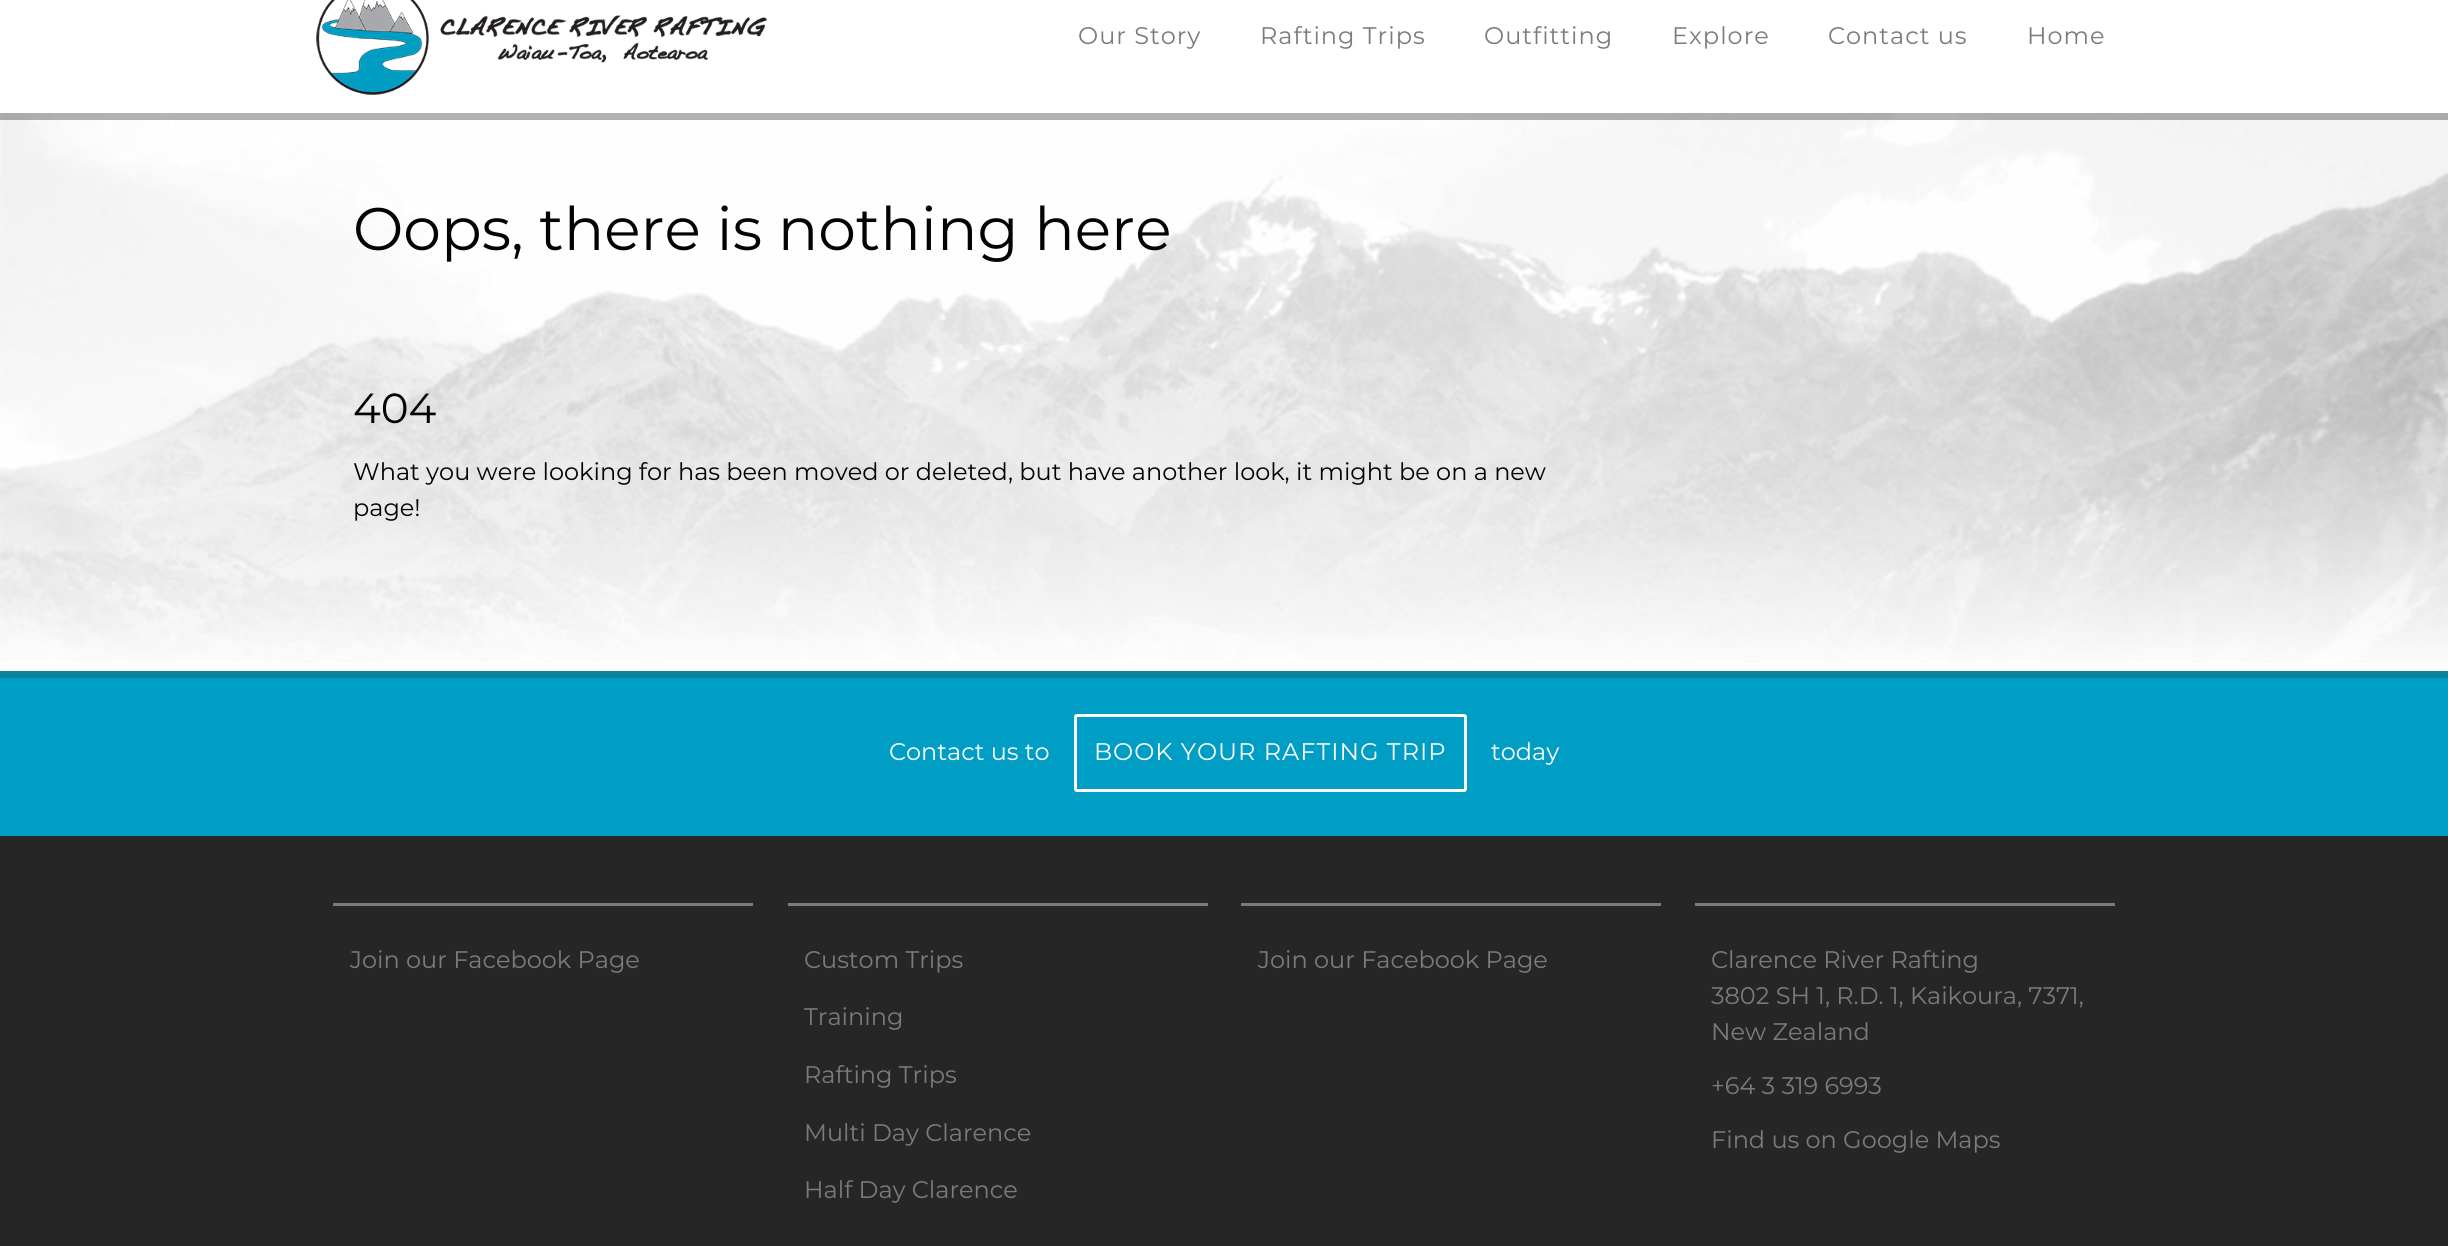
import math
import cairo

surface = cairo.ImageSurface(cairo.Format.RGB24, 2448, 1246)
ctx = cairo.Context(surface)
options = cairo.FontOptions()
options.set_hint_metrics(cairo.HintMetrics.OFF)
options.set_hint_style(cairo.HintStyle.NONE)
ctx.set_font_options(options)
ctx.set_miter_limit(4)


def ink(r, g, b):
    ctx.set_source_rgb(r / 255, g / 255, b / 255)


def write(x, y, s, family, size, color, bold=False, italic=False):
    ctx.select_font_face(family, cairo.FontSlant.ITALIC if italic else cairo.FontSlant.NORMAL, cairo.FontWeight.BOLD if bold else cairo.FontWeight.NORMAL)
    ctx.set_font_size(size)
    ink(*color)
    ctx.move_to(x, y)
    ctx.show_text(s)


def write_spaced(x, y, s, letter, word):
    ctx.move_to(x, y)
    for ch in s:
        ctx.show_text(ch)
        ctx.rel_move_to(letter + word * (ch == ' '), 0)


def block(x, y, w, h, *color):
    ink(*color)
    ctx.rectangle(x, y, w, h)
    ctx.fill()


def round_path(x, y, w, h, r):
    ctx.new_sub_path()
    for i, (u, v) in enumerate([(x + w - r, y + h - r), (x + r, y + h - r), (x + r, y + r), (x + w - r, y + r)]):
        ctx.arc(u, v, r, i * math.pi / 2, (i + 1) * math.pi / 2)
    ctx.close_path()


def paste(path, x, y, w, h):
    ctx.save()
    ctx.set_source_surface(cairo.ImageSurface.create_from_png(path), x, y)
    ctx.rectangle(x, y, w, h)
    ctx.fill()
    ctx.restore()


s1 = dict(family="Montserrat", size=60, color=(3, 3, 3))
s2 = dict(family="Montserrat", size=42, color=(3, 3, 3))
s3 = dict(family="Montserrat", size=24, color=(3, 3, 3))
s4 = dict(family="Montserrat", size=24, color=(255, 255, 255))
s5 = dict(family="Montserrat", size=24, color=(123, 123, 123))

ink(255, 255, 255)
ctx.paint()
paste("pic3.png", 0, 113, 2448, 550)
ctx.set_source_rgba(0, 0, 0, 0.3)
ctx.rectangle(0, 113, 2448, 7)
ctx.fill()
paste("pic1.png", 316, 0, 451, 95)
paste("pic2.png", 316, 0, 451, 95)
ctx.select_font_face("Montserrat")
ctx.set_font_size(24)
ink(123, 123, 123)
write_spaced(1078, 44, "Our Story", 1, 0)
write_spaced(1260, 44, "Rafting Trips", 1, 0)
write_spaced(1484, 44, "Outfitting", 1, 0)
write_spaced(1672, 44, "Explore", 1, 0)
write_spaced(1828, 44, "Contact us", 1, 0)
write_spaced(2027, 44, "Home", 1, 0)
write(353, 250, "Oops, there is nothing here", **s1)
write(353, 423, "404", **s2)
write(353, 480, "What you were looking for has been moved or deleted, but have another look, it might be on a new", **s3)
write(353, 516, "page!", **s3)
block(0, 678, 2448, 158, 0, 158, 197)
block(0, 671, 2448, 7, 12, 130, 158)
write(889, 760, "Contact us to", **s4)
round_path(1075.5, 715.5, 390, 75, 1.5)
ctx.set_line_width(3)
ctx.stroke()
write_spaced(1094, 760, "BOOK YOUR RAFTING TRIP", 1, 0)
write(1491, 760, "today", **s4)
block(0, 836, 2448, 410, 38, 38, 38)
block(333, 903, 420, 3, 123, 123, 123)
write(350, 968, "Join our Facebook Page", **s5)
block(788, 903, 420, 3, 123, 123, 123)
write(804, 968, "Custom Trips", **s5)
write(804, 1025, "Training", **s5)
write(804, 1083, "Rafting Trips", **s5)
write(804, 1141, "Multi Day Clarence", **s5)
write(804, 1198, "Half Day Clarence", **s5)
block(1241, 903, 420, 3, 123, 123, 123)
write(1258, 968, "Join our Facebook Page", **s5)
block(1695, 903, 420, 3, 123, 123, 123)
write(1711, 968, "Clarence River Rafting", **s5)
write(1711, 1004, "3802 SH 1, R.D. 1, Kaikoura, 7371,", **s5)
write(1711, 1040, "New Zealand", **s5)
write(1711, 1094, "+64 3 319 6993", **s5)
write(1711, 1148, "Find us on Google Maps", **s5)
surface.write_to_png("screenshot.png")
